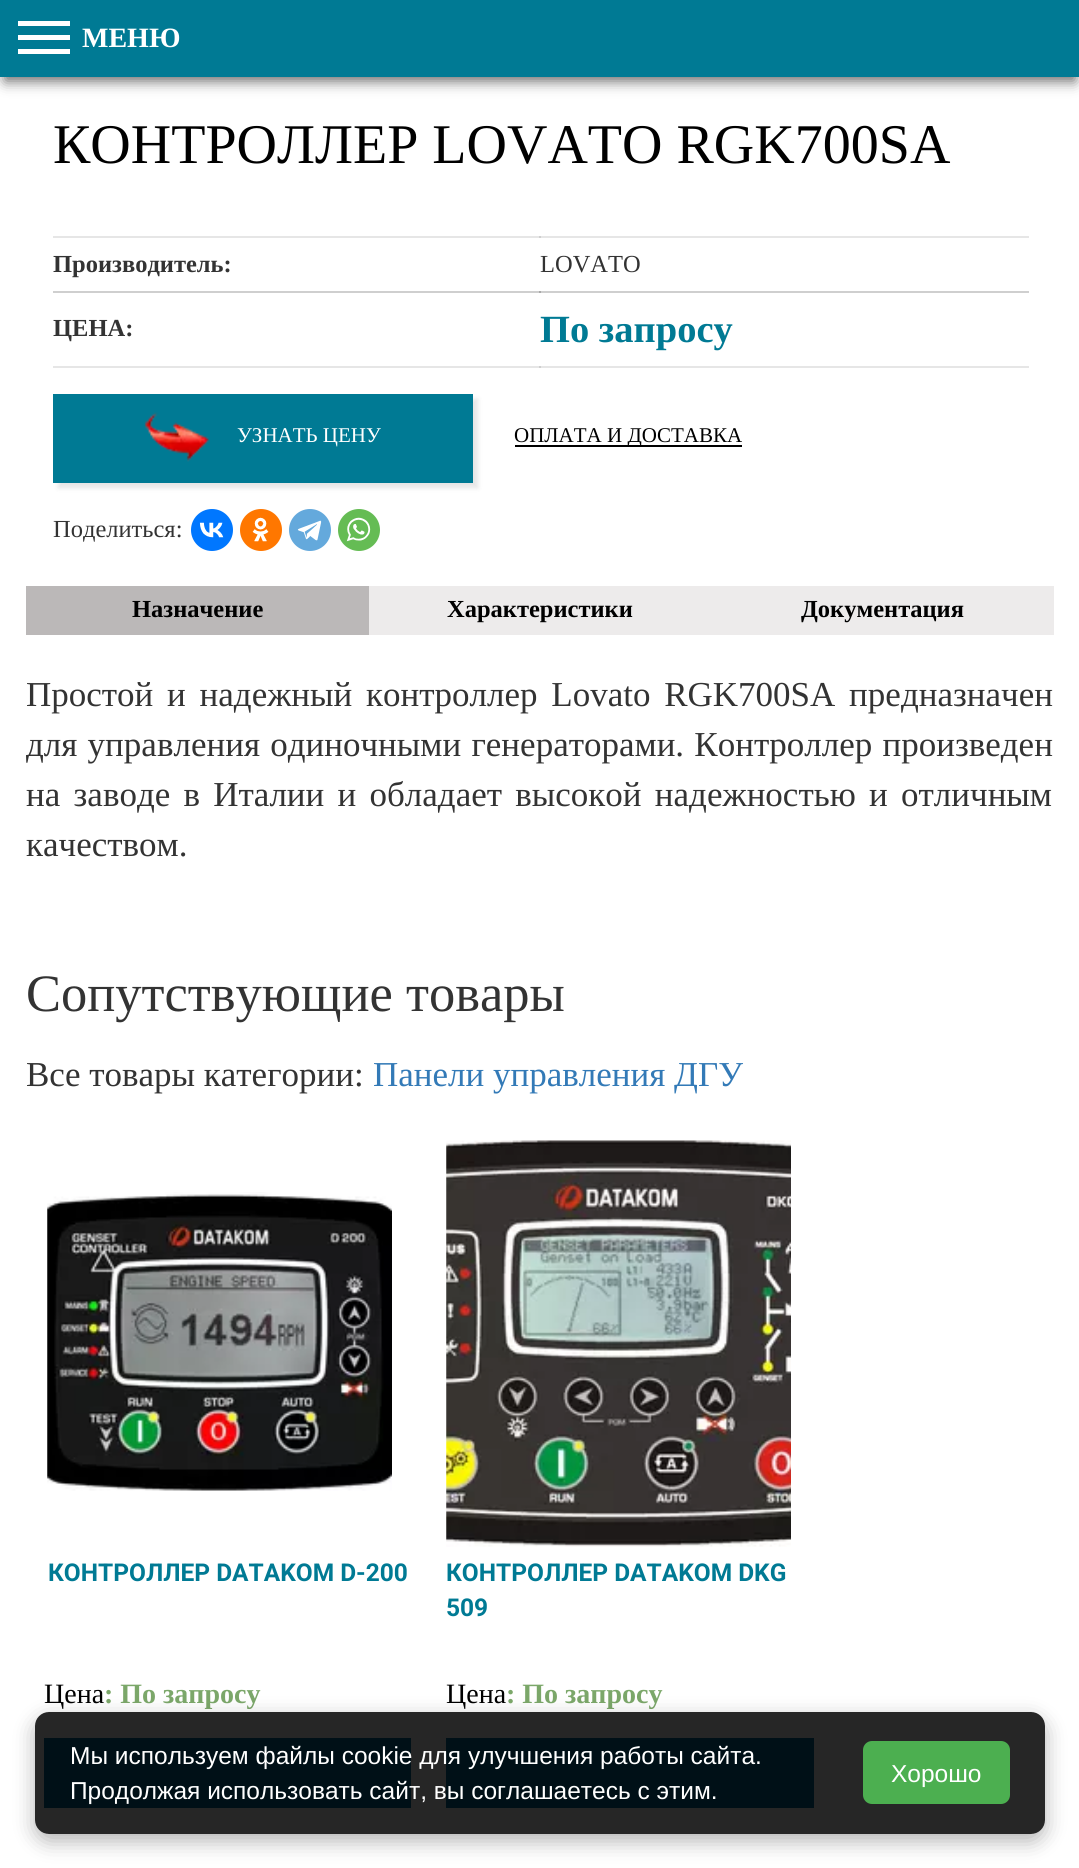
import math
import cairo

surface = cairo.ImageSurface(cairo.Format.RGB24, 1079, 1868)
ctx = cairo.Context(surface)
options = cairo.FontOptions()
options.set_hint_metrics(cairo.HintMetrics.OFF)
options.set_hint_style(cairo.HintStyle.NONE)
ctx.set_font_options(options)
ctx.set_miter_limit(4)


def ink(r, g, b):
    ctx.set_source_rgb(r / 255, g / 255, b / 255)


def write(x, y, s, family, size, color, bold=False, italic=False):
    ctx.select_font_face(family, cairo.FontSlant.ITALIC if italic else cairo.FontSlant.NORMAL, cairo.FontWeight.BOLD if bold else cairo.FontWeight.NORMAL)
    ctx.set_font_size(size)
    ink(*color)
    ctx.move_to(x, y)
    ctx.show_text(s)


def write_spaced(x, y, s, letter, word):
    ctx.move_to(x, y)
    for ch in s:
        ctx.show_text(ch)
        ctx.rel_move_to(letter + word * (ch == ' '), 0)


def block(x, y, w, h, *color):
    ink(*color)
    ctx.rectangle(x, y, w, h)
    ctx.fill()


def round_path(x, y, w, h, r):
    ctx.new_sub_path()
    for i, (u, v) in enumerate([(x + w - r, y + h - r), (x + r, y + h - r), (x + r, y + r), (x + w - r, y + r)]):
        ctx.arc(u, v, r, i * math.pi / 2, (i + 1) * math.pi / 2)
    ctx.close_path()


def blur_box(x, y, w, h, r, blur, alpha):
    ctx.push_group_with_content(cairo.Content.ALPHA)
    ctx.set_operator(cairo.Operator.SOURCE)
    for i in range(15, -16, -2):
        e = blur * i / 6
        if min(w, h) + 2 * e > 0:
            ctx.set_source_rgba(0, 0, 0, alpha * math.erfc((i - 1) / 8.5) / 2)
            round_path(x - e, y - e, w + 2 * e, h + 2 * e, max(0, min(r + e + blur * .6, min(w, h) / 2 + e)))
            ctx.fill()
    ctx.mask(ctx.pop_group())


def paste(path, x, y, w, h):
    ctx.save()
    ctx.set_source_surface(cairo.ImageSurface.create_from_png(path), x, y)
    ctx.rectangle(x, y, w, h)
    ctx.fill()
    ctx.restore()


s1 = dict(family="Liberation Serif", size=28, color=(255, 255, 255), bold=True)
s2 = dict(family="Liberation Serif", size=56, color=(0, 0, 0))
s3 = dict(family="Liberation Serif", size=24.5, color=(51, 51, 51), bold=True)
s4 = dict(family="Liberation Serif", size=24.5, color=(51, 51, 51))
s5 = dict(family="Liberation Serif", size=38.5, color=(0, 122, 148), bold=True)
s6 = dict(family="Liberation Serif", size=21, color=(255, 255, 255))
s7 = dict(family="Liberation Serif", size=21, color=(0, 0, 0))
s8 = dict(family="Liberation Serif", size=24.5, color=(0, 0, 0), bold=True)
s9 = dict(family="Liberation Serif", size=35, color=(51, 51, 51))
s10 = dict(family="Liberation Serif", size=52.5, color=(51, 51, 51))
s11 = dict(family="Liberation Serif", size=35, color=(51, 122, 183))
s12 = dict(family="Roboto", size=24.5, color=(0, 122, 148), bold=True)
s13 = dict(family="Liberation Serif", size=28, color=(0, 0, 0))
s14 = dict(family="Liberation Serif", size=28, color=(123, 167, 105), bold=True)
s15 = dict(family="Liberation Sans", size=24.5, color=(255, 255, 255))

ink(255, 255, 255)
ctx.paint()
ink(50, 50, 50)
blur_box(5, 14, 1070, 67, 0, 7, 0.75)
block(0, 0, 1079, 77, 0, 122, 148)
block(18, 35, 52, 5, 255, 255, 255)
block(18, 21, 52, 5, 255, 255, 255)
block(18, 49, 52, 5, 255, 255, 255)
write(82, 47, "МЕНЮ", **s1)
write(53, 163, "КОНТРОЛЛЕР LOVATO RGK700SA", **s2)
block(539, 236, 490, 2, 230, 230, 230)
ctx.set_source_rgba(0, 0, 0, 0.1)
ctx.rectangle(53, 236, 488, 2)
ctx.fill()
block(539, 291, 490, 2, 230, 230, 230)
ctx.set_source_rgba(0, 0, 0, 0.1)
ctx.rectangle(53, 291, 488, 2)
ctx.fill()
ctx.rectangle(539, 291, 490, 2)
ctx.fill()
ctx.rectangle(53, 291, 488, 2)
ctx.fill()
write(53, 272, "Производитель:", **s3)
write(540, 272, "LOVATO", **s4)
block(539, 366, 490, 2, 230, 230, 230)
ctx.set_source_rgba(0, 0, 0, 0.1)
ctx.rectangle(53, 366, 488, 2)
ctx.fill()
write(53, 336, "ЦЕНА:", **s3)
write(540, 342, "По запросу", **s5)
ink(0, 0, 0)
blur_box(58, 399, 420, 89, 0, 2.5, 0.1)
block(53, 394, 420, 89, 0, 122, 148)
paste("pic1.png", 144, 412, 65, 50)
write(237, 442, "УЗНАТЬ ЦЕНУ", **s6)
block(515, 445, 227, 2, 0, 0, 0)
write(514, 442, "ОПЛАТА И ДОСТАВКА", **s7)
write(53, 537, "Поделиться:", **s4)
ink(0, 119, 255)
ctx.new_path()
ctx.arc(212, 530, 21, 0, 2 * math.pi)
ctx.fill()
paste("pic2.png", 199, 522, 25, 16)
ink(255, 119, 0)
ctx.arc(261, 530, 21, 0, 2 * math.pi)
ctx.fill()
paste("pic3.png", 252, 517, 17, 25)
ink(100, 169, 220)
ctx.arc(310, 530, 21, 0, 2 * math.pi)
ctx.fill()
paste("pic4.png", 297, 520, 25, 21)
ink(101, 188, 84)
ctx.arc(359, 530, 21, 0, 2 * math.pi)
ctx.fill()
paste("pic5.png", 346, 517, 25, 25)
block(26, 586, 343, 49, 187, 184, 184)
write(132, 617, "Назначение", **s8)
block(369, 586, 685, 49, 237, 235, 235)
write(447, 617, "Характеристики", **s8)
write(801, 617, "Документация", **s8)
ctx.select_font_face("Liberation Serif")
ctx.set_font_size(35)
ink(51, 51, 51)
write_spaced(26, 706, "Простой и надежный контроллер Lovato RGK700SA предназначен", 0, 5)
write_spaced(26, 756, "для управления одиночными генераторами. Контроллер произведен", 0, 1.5)
write_spaced(26, 806, "на заводе в Италии и обладает высокой надежностью и отличным", 0, 4.5)
write(26, 856, "качеством.", **s9)
write(26, 1011, "Сопутствующие товары", **s10)
write(26, 1086, "Все товары категории:", **s9)
write(373, 1086, "Панели управления ДГУ", **s11)
paste("pic6.png", 47, 1192, 345, 299)
write(48, 1581, "КОНТРОЛЛЕР DATAKOM D-200", **s12)
write(44, 1703, "Цена", **s13)
write(104, 1703, ": По запросу", **s14)
block(44, 1738, 367, 70, 2, 106, 153)
paste("pic7.png", 446, 1140, 345, 407)
write(446, 1581, "КОНТРОЛЛЕР DATAKOM DKG", **s12)
write(446, 1616, "509", **s12)
write(446, 1703, "Цена", **s13)
write(506, 1703, ": По запросу", **s14)
block(446, 1738, 368, 70, 2, 106, 153)
ctx.save()
ctx.set_fill_rule(cairo.FillRule.EVEN_ODD)
ctx.new_path()
ctx.move_to(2, 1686)
ctx.line_to(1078, 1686)
ctx.line_to(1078, 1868)
ctx.line_to(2, 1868)
ctx.close_path()
ctx.move_to(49, 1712)
ctx.line_to(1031, 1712)
ctx.curve_to(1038.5, 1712, 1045, 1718.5, 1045, 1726)
ctx.line_to(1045, 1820)
ctx.curve_to(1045, 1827.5, 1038.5, 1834, 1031, 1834)
ctx.line_to(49, 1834)
ctx.curve_to(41.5, 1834, 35, 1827.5, 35, 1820)
ctx.line_to(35, 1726)
ctx.curve_to(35, 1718.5, 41.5, 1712, 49, 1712)
ctx.close_path()
ctx.clip()
ink(0, 0, 0)
blur_box(35, 1719, 1010, 122, 14, 10.5, 0.3)
ctx.restore()
ctx.set_source_rgba(0, 0, 0, 0.85)
round_path(35, 1712, 1010, 122, 14)
ctx.fill()
write(70, 1764, "Мы используем файлы cookie для улучшения работы сайта.", **s15)
write(70, 1799, "Продолжая использовать сайт, вы соглашаетесь с этим.", **s15)
ink(76, 175, 80)
round_path(863, 1741, 147, 63, 9)
ctx.fill()
write(891, 1782, "Хорошо", **s15)
surface.write_to_png("screenshot.png")
